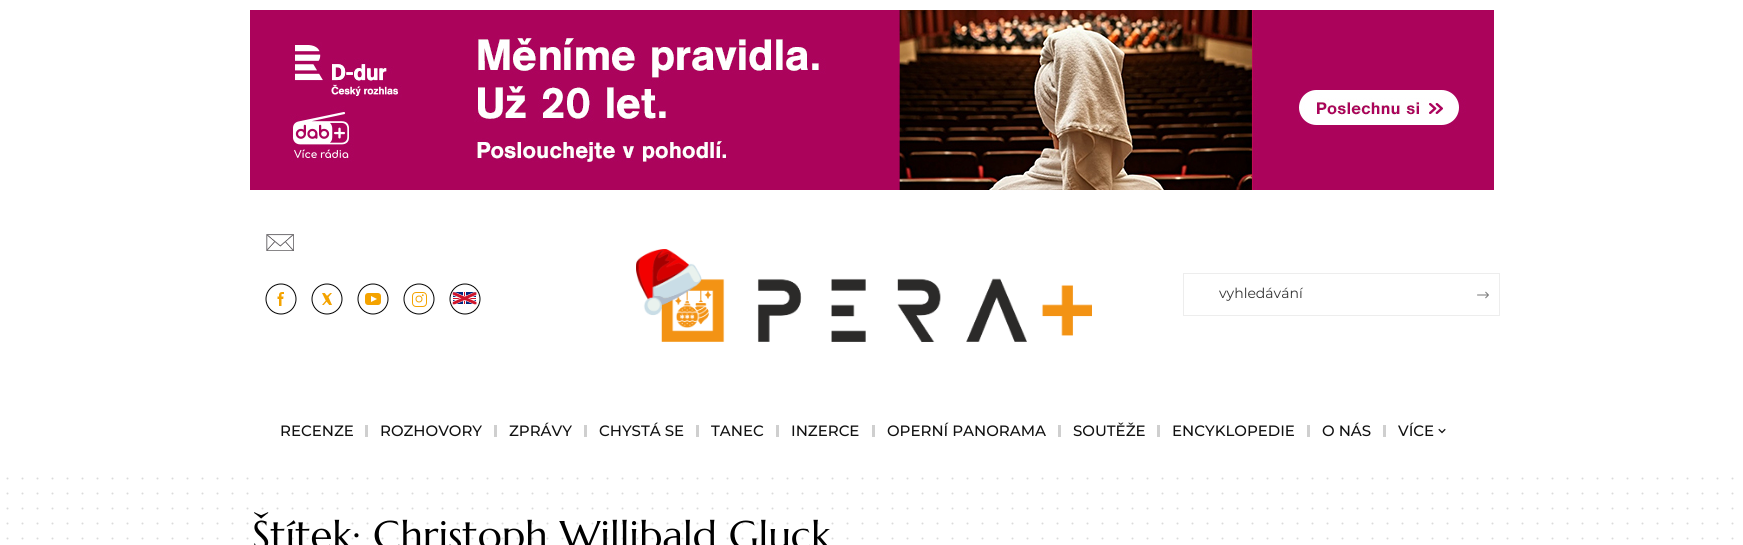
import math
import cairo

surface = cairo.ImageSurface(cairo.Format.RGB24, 1743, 545)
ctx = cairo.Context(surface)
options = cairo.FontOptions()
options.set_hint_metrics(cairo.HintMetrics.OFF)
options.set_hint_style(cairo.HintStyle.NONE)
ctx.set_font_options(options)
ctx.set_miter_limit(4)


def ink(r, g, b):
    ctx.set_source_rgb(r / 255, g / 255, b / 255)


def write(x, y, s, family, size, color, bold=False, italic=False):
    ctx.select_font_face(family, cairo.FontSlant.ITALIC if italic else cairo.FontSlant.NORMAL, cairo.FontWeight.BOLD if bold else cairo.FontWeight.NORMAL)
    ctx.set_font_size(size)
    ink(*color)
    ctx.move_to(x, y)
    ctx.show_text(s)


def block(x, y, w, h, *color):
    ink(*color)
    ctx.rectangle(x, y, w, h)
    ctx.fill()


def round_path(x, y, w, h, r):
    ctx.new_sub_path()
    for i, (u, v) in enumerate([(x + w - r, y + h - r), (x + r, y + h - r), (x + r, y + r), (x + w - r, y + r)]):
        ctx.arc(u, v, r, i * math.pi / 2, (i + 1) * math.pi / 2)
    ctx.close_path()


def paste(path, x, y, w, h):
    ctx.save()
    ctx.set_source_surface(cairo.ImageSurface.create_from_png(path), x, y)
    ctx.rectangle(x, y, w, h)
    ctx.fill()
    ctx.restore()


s1 = dict(family="Montserrat", size=14, color=(51, 51, 51))
s2 = dict(family="Montserrat Medium", size=15, color=(17, 17, 17))
s3 = dict(family="Marcellus", size=40, color=(0, 0, 0))

ink(255, 255, 255)
ctx.paint()
paste("pic1.png", 250, 10, 1244, 180)
paste("pic2.png", 266, 234, 28, 17)
paste("pic3.png", 265, 283, 32, 32)
paste("pic4.png", 311, 283, 32, 32)
ctx.arc(373, 299, 15, 0, 2 * math.pi)
ink(0, 0, 0)
ctx.set_line_width(1)
ctx.stroke()
ink(244, 163, 0)
round_path(365, 293, 16, 12, 3)
ctx.fill()
ink(255, 255, 255)
ctx.new_path()
ctx.move_to(371, 296)
ctx.line_to(371, 302)
ctx.line_to(377, 299)
ctx.close_path()
ctx.fill()
ctx.arc(419, 299, 15, 0, 2 * math.pi)
ink(0, 0, 0)
ctx.stroke()
round_path(412.5, 292.5, 14, 14, 3.5)
ink(244, 163, 0)
ctx.stroke()
ctx.arc(419, 299, 3, 0, 2 * math.pi)
ctx.stroke()
ctx.arc(422.8, 295.2, 0.9, 0, 2 * math.pi)
ctx.fill()
paste("pic5.png", 449, 283, 32, 32)
paste("pic6.png", 636, 249, 456, 93)
ctx.rectangle(1183.5, 273.5, 316, 42)
ink(237, 237, 237)
ctx.stroke()
write(1219, 298, "vyhledávání", **s1)
paste("pic7.png", 1477, 291, 12, 8)
write(280, 436, "RECENZE", **s2)
block(365, 425, 3, 12, 207, 207, 207)
write(380, 436, "ROZHOVORY", **s2)
block(494, 425, 3, 12, 207, 207, 207)
write(509, 436, "ZPRÁVY", **s2)
block(584, 425, 3, 12, 207, 207, 207)
write(599, 436, "CHYSTÁ SE", **s2)
block(696, 425, 3, 12, 207, 207, 207)
write(711, 436, "TANEC", **s2)
block(776, 425, 3, 12, 207, 207, 207)
write(791, 436, "INZERCE", **s2)
block(872, 425, 3, 12, 207, 207, 207)
write(887, 436, "OPERNÍ PANORAMA", **s2)
block(1058, 425, 3, 12, 207, 207, 207)
write(1073, 436, "SOUTĚŽE", **s2)
block(1157, 425, 3, 12, 207, 207, 207)
write(1172, 436, "ENCYKLOPEDIE", **s2)
block(1307, 425, 3, 12, 207, 207, 207)
write(1322, 436, "O NÁS", **s2)
block(1383, 425, 3, 12, 207, 207, 207)
write(1398, 436, "VÍCE", **s2)
paste("pic8.png", 1438, 428, 8, 6)
ctx.new_path()
ctx.move_to(7.5, 478.5)
ctx.line_to(1732.7, 478.5)
ink(219, 219, 219)
ctx.set_line_width(2)
ctx.set_line_cap(cairo.LineCap.ROUND)
ctx.set_dash([0, 15])
ctx.stroke()
ctx.new_path()
ctx.move_to(7.5, 493.5)
ctx.line_to(1732.7, 493.5)
ctx.stroke()
ctx.new_path()
ctx.move_to(7.5, 508.5)
ctx.line_to(1732.7, 508.5)
ctx.stroke()
write(252, 549, "Štítek: Christoph Willibald Gluck", **s3)
ctx.new_path()
ctx.move_to(7.5, 523.5)
ctx.line_to(1732.7, 523.5)
ctx.set_source_rgba(0.067, 0.067, 0.067, 0.15)
ctx.stroke()
ctx.new_path()
ctx.move_to(7.5, 538.5)
ctx.line_to(1732.7, 538.5)
ctx.stroke()
surface.write_to_png("screenshot.png")
